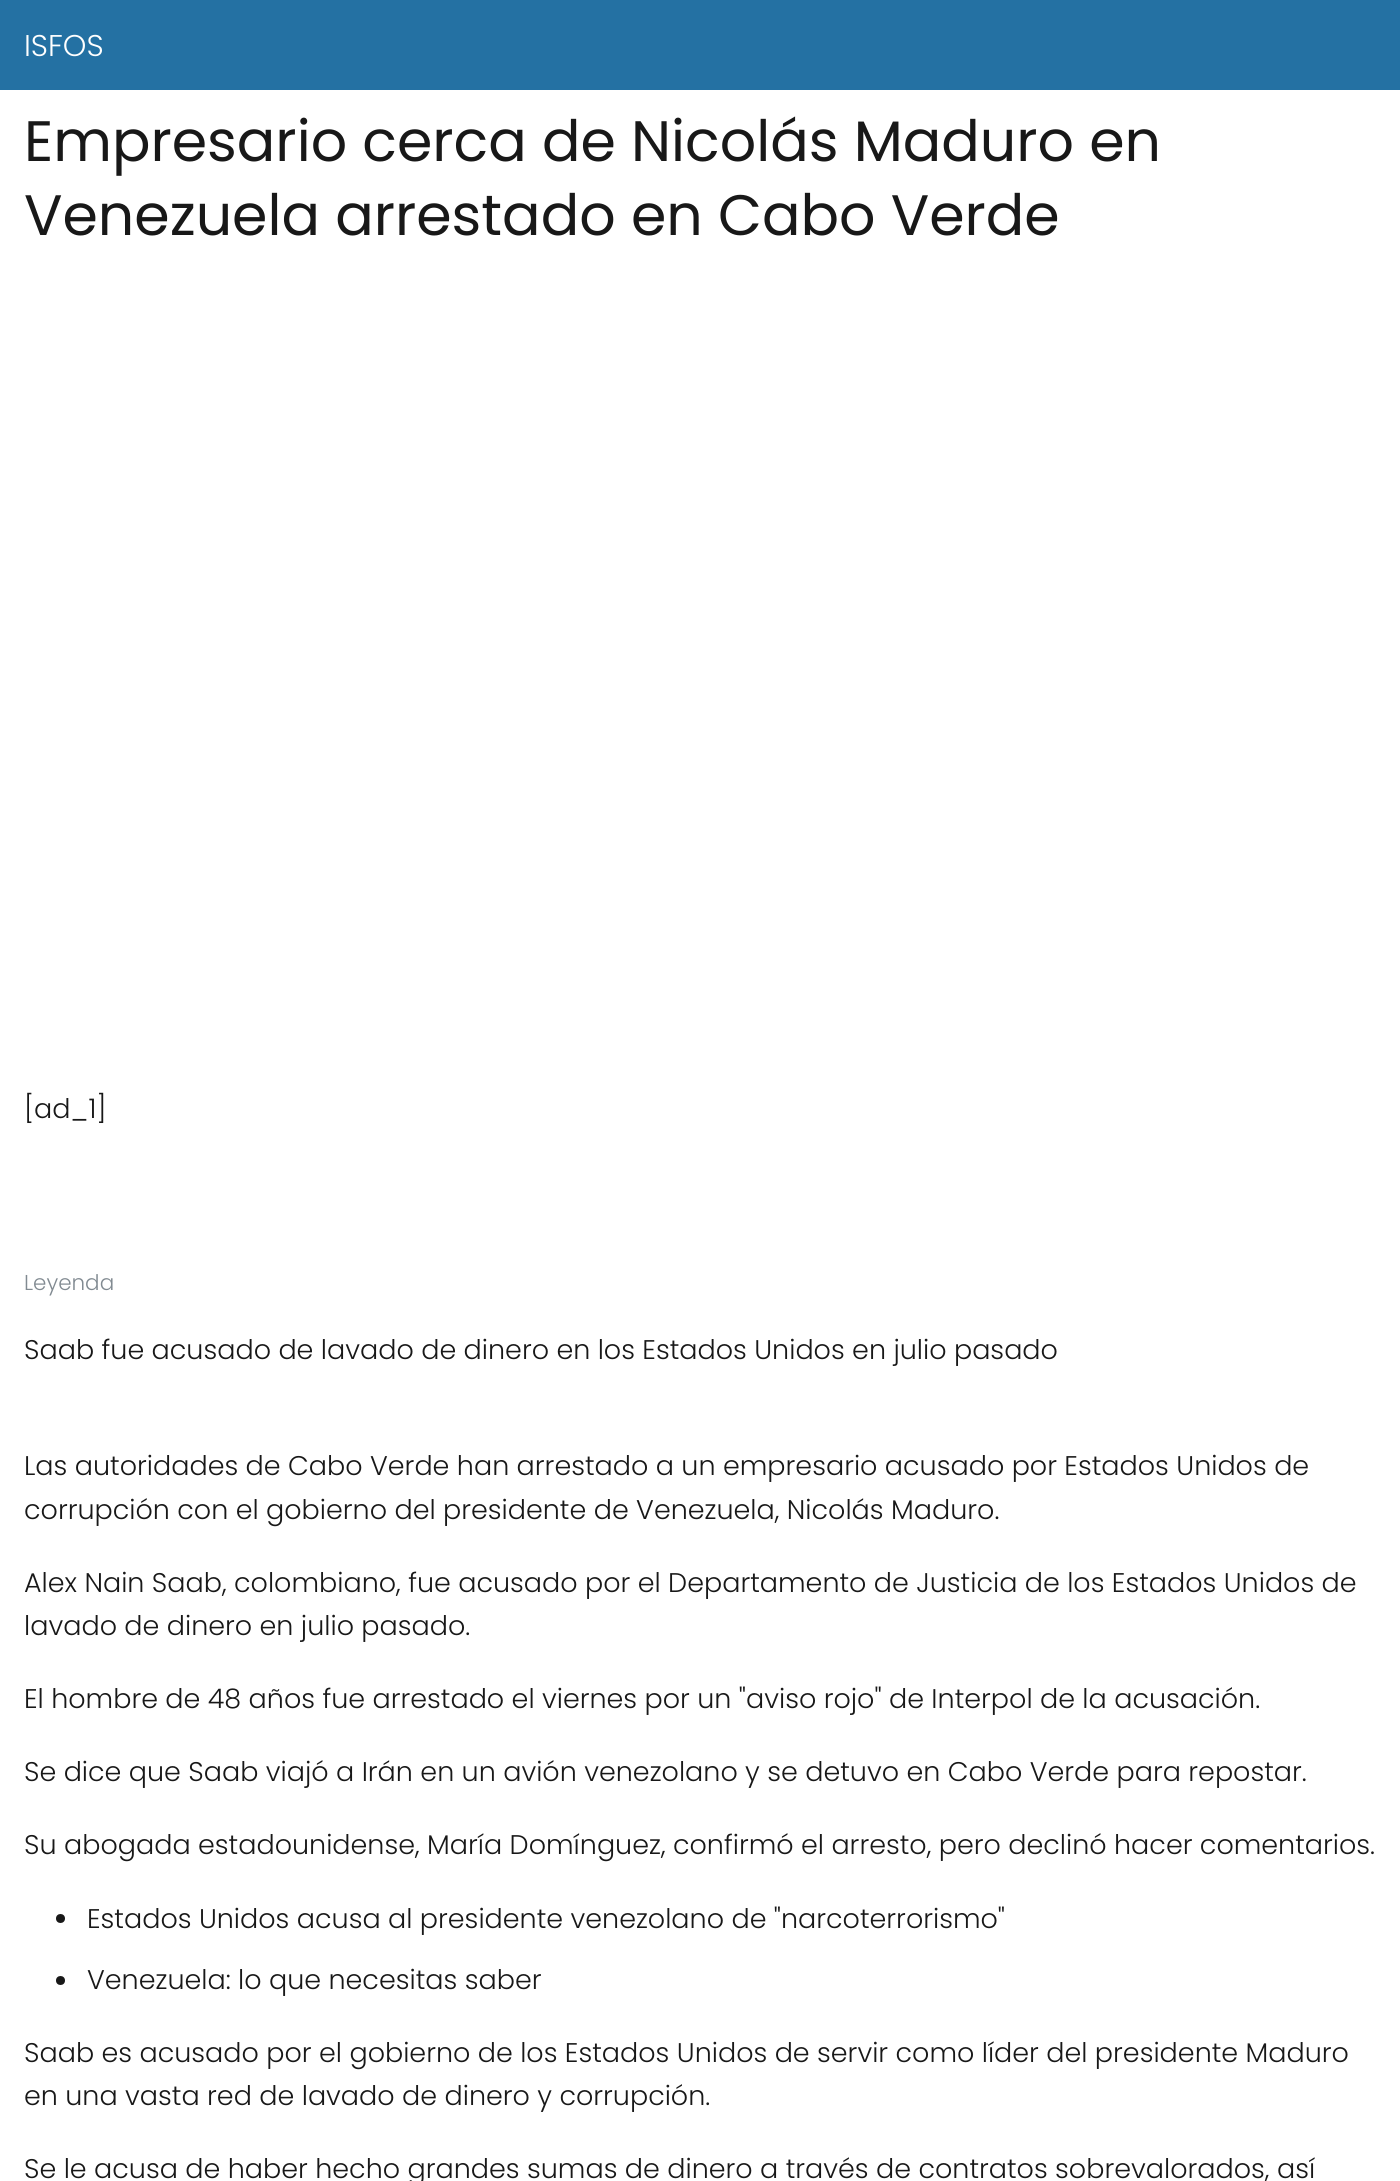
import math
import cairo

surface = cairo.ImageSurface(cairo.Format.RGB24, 1400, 2181)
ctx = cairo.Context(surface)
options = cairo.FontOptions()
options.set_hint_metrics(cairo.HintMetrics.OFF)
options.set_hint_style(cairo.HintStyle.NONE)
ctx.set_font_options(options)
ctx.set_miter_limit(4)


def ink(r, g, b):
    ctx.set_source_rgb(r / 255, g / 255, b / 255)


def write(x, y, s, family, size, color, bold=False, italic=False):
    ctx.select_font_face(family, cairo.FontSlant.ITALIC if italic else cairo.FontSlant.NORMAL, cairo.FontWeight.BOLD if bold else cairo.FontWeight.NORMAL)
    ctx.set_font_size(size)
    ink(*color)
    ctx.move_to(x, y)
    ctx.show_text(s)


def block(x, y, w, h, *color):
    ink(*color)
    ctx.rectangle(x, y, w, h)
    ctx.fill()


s1 = dict(family="Poppins Light", size=30, color=(255, 255, 255))
s2 = dict(family="Poppins", size=57, color=(24, 24, 24))
s3 = dict(family="Poppins Light", size=27, color=(24, 24, 24))
s4 = dict(family="Poppins Light", size=21.5, color=(129, 138, 145))

ink(255, 255, 255)
ctx.paint()
block(0, 0, 1400, 90, 36, 113, 163)
write(24, 56, "ISFOS", **s1)
write(24, 161, "Empresario cerca de Nicolás Maduro en", **s2)
write(24, 235, "Venezuela arrestado en Cabo Verde", **s2)
write(24, 1118, "[ad_1]", **s3)
write(24, 1290, "Leyenda", **s4)
write(24, 1359, "Saab fue acusado de lavado de dinero en los Estados Unidos en julio pasado", **s3)
write(24, 1475, "Las autoridades de Cabo Verde han arrestado a un empresario acusado por Estados Unidos de", **s3)
write(24, 1519, "corrupción con el gobierno del presidente de Venezuela, Nicolás Maduro.", **s3)
write(24, 1592, "Alex Nain Saab, colombiano, fue acusado por el Departamento de Justicia de los Estados Unidos de", **s3)
write(24, 1635, "lavado de dinero en julio pasado.", **s3)
write(24, 1708, "El hombre de 48 años fue arrestado el viernes por un \"aviso rojo\" de Interpol de la acusación.", **s3)
write(24, 1781, "Se dice que Saab viajó a Irán en un avión venezolano y se detuvo en Cabo Verde para repostar.", **s3)
write(24, 1854, "Su abogada estadounidense, María Domínguez, confirmó el arresto, pero declinó hacer comentarios.", **s3)
ctx.new_path()
ctx.arc(60.5, 1918.5, 4.5, 0, 2 * math.pi)
ctx.fill()
write(87, 1928, "Estados Unidos acusa al presidente venezolano de \"narcoterrorismo\"", **s3)
ctx.new_path()
ctx.arc(60.5, 1980.5, 4.5, 0, 2 * math.pi)
ctx.fill()
write(87, 1989, "Venezuela: lo que necesitas saber", **s3)
write(24, 2062, "Saab es acusado por el gobierno de los Estados Unidos de servir como líder del presidente Maduro", **s3)
write(24, 2105, "en una vasta red de lavado de dinero y corrupción.", **s3)
write(24, 2178, "Se le acusa de haber hecho grandes sumas de dinero a través de contratos sobrevalorados, así", **s3)
surface.write_to_png("screenshot.png")
